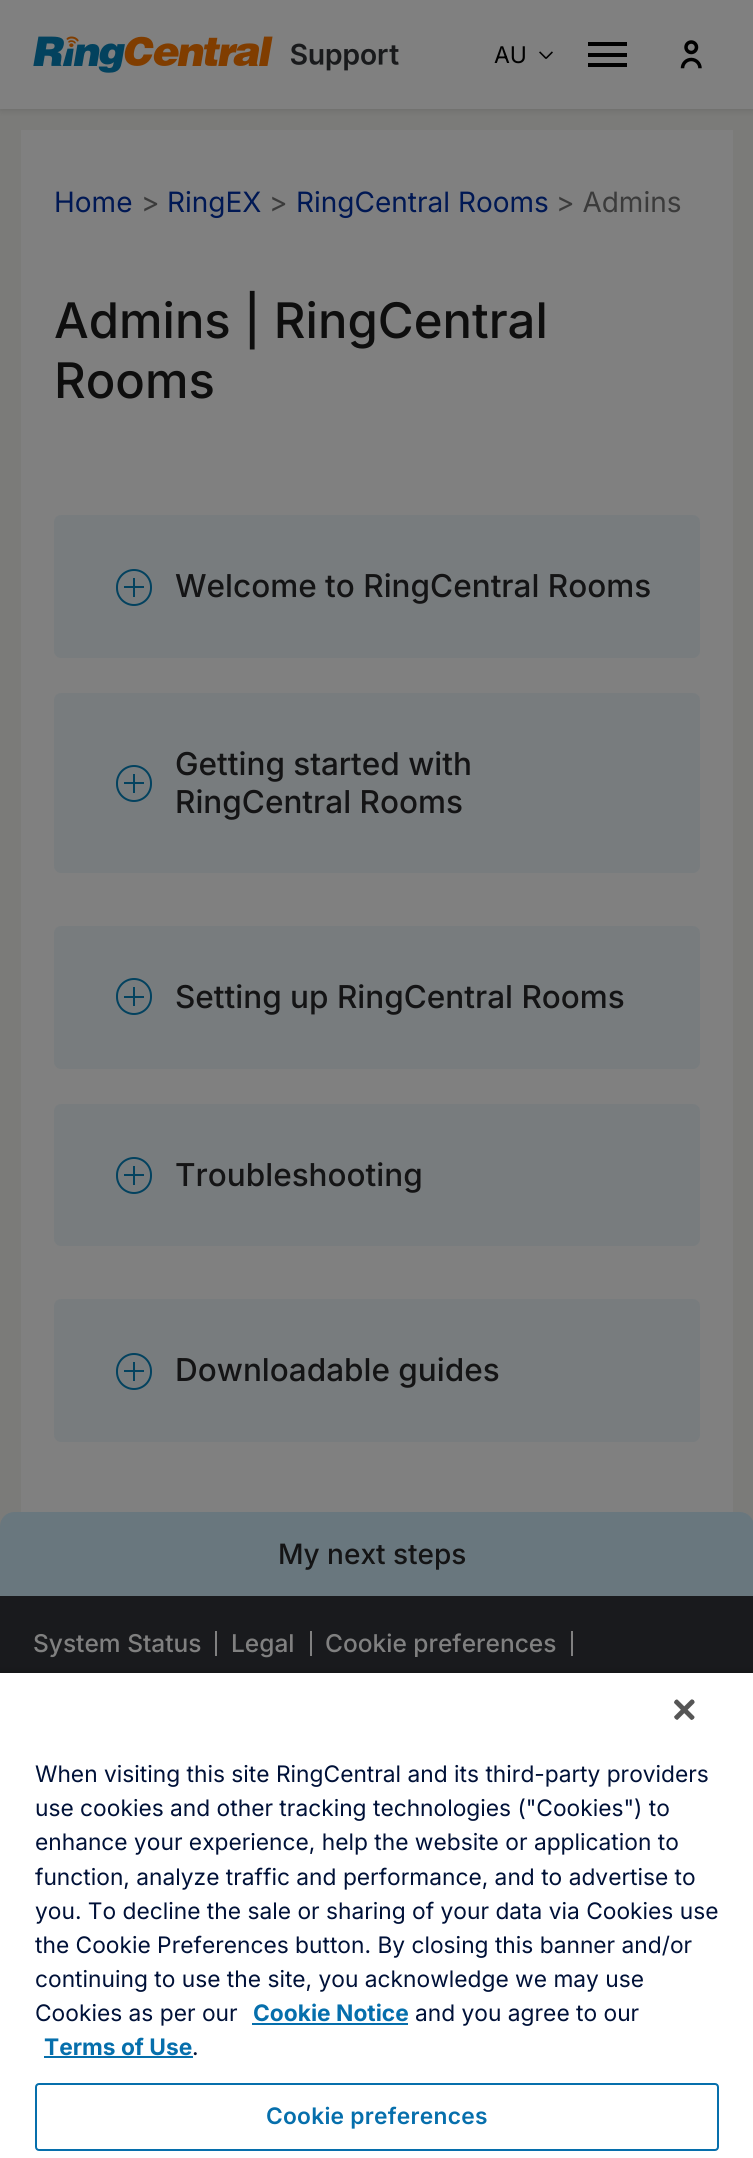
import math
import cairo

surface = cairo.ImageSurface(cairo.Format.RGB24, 753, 2158)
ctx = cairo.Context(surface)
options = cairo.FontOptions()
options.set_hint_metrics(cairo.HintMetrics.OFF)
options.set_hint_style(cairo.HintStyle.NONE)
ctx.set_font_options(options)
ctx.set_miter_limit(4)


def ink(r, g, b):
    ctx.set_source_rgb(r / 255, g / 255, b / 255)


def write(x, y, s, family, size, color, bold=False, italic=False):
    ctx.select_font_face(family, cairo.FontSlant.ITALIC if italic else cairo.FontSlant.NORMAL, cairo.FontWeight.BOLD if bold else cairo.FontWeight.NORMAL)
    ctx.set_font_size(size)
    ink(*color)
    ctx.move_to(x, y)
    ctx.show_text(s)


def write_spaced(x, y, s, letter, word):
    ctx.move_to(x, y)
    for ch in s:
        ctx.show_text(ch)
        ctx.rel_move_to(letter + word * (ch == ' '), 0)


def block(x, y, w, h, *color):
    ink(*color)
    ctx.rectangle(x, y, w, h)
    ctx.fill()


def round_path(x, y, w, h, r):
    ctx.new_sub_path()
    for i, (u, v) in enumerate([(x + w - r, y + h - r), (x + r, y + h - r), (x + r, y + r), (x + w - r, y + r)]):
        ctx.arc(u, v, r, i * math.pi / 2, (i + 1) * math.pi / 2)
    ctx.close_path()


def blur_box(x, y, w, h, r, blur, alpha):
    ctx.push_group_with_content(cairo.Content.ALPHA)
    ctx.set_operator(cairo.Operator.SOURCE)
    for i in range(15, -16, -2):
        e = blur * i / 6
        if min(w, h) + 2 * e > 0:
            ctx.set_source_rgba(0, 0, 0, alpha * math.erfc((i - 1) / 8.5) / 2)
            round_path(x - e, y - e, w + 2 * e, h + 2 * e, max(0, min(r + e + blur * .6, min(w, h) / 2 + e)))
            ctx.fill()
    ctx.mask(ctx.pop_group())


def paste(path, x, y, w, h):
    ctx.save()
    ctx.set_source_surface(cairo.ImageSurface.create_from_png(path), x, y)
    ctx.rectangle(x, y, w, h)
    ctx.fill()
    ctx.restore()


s1 = dict(family="Inter", size=23, color=(0, 0, 0))
s2 = dict(family="Inter", size=28, color=(0, 24, 84))
s3 = dict(family="Inter", size=28, color=(59, 59, 59))
s4 = dict(family="Inter Medium", size=49, color=(14, 14, 14))
s5 = dict(family="Inter Medium", size=31.5, color=(20, 20, 21))
s6 = dict(family="Inter Medium", size=28, color=(20, 20, 21))
s7 = dict(family="Inter Medium", size=24.5, color=(128, 128, 128))
s8 = dict(family="Inter", size=22.75, color=(0, 17, 56))
s9 = dict(family="Inter", size=22.75, color=(6, 111, 172), bold=True)

ink(123, 123, 121)
ctx.paint()
ink(0, 0, 0)
blur_box(0, 0, 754, 109, 0, 4.5, 0.15)
block(0, 0, 753, 109, 128, 128, 128)
paste("pic1.png", 33, 36, 366, 37)
write(494, 63, "AU", **s1)
paste("pic2.png", 539, 51, 14, 8)
block(588, 42, 39, 4, 0, 0, 0)
block(588, 53, 39, 4, 0, 0, 0)
block(588, 63, 39, 4, 0, 0, 0)
paste("pic3.png", 680, 40, 22, 29)
block(21, 130, 712, 1382, 128, 128, 128)
write(54, 212, "Home", **s2)
write(141, 212, ">", **s3)
write(167, 212, "RingEX", **s2)
write(269, 212, ">", **s3)
write(296, 212, "RingCentral Rooms", **s2)
write(556, 212, "> Admins", **s3)
write(54, 338, "Admins | RingCentral", **s4)
write(54, 398, "Rooms", **s4)
ink(120, 124, 126)
round_path(54, 515, 646, 143, 7)
ctx.fill()
round_path(117, 570, 34, 35, 17)
ink(3, 66, 95)
ctx.stroke()
block(124, 586, 20, 2, 3, 66, 95)
block(133, 578, 2, 19, 3, 66, 95)
write(175, 597, "Welcome to RingCentral Rooms", **s5)
ink(120, 124, 126)
round_path(54, 693, 646, 180, 7)
ctx.fill()
round_path(117, 766, 34, 35, 17)
ink(3, 66, 95)
ctx.stroke()
block(124, 782, 20, 2, 3, 66, 95)
block(133, 774, 2, 19, 3, 66, 95)
write(175, 775, "Getting started with", **s5)
write(175, 813, "RingCentral Rooms", **s5)
ink(120, 124, 126)
round_path(54, 926, 646, 143, 7)
ctx.fill()
round_path(117, 979, 34, 35, 17)
ink(3, 66, 95)
ctx.stroke()
block(124, 996, 20, 2, 3, 66, 95)
block(133, 987, 2, 19, 3, 66, 95)
write(175, 1008, "Setting up RingCentral Rooms", **s5)
ink(120, 124, 126)
round_path(54, 1104, 646, 142, 7)
ctx.fill()
round_path(117, 1158, 34, 35, 17)
ink(3, 66, 95)
ctx.stroke()
block(124, 1174, 20, 2, 3, 66, 95)
block(133, 1166, 2, 19, 3, 66, 95)
write(175, 1186, "Troubleshooting", **s5)
ink(120, 124, 126)
round_path(54, 1299, 646, 143, 7)
ctx.fill()
round_path(117, 1354, 34, 35, 17)
ink(3, 66, 95)
ctx.stroke()
block(124, 1370, 20, 2, 3, 66, 95)
block(133, 1362, 2, 19, 3, 66, 95)
write(175, 1381, "Downloadable guides", **s5)
ink(105, 119, 126)
ctx.new_path()
ctx.move_to(14, 1512)
ctx.line_to(740, 1512)
ctx.curve_to(747.5, 1512, 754, 1518.5, 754, 1526)
ctx.line_to(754, 1596)
ctx.line_to(0, 1596)
ctx.line_to(0, 1526)
ctx.curve_to(0, 1518.5, 6.5, 1512, 14, 1512)
ctx.close_path()
ctx.fill()
write(278, 1564, "My next steps", **s6)
block(0, 1596, 753, 77, 25, 26, 29)
block(215, 1631, 2, 25, 128, 128, 128)
write(33, 1652, "System Status", **s7)
block(310, 1631, 2, 25, 128, 128, 128)
write(231, 1652, "Legal", **s7)
block(571, 1631, 2, 25, 128, 128, 128)
write(325, 1652, "Cookie preferences", **s7)
ink(0, 0, 0)
blur_box(0, 1673, 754, 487, 0, 3.5, 0.35)
block(0, 1673, 753, 485, 255, 255, 255)
paste("pic4.png", 674, 1699, 21, 21)
write(35, 1782, "When visiting this site RingCentral and its third-party providers", **s8)
write(35, 1816, "use cookies and other tracking technologies (\"Cookies\") to", **s8)
write(35, 1850, "enhance your experience, help the website or application to", **s8)
write(35, 1885, "function, analyze traffic and performance, and to advertise to", **s8)
write(35, 1919, "you. To decline the sale or sharing of your data via Cookies use", **s8)
write(35, 1953, "the Cookie Preferences button. By closing this banner and/or", **s8)
write(35, 1987, "continuing to use the site, you acknowledge we may use", **s8)
write(35, 2021, "Cookies as per our", **s8)
write(253, 2021, "Cookie Notice", **s9)
block(252, 2023, 156, 2, 6, 111, 172)
write(415, 2021, "and you agree to our", **s8)
write(44, 2055, "Terms of Use", **s9)
block(44, 2056, 149, 2, 6, 111, 172)
write(192, 2055, ".", **s8)
round_path(36, 2084, 682, 66, 3)
ink(6, 111, 172)
ctx.stroke()
ctx.select_font_face("Inter SemiBold")
write_spaced(266, 2124, "Cookie preferences", 0.25, 0)
surface.write_to_png("screenshot.png")
